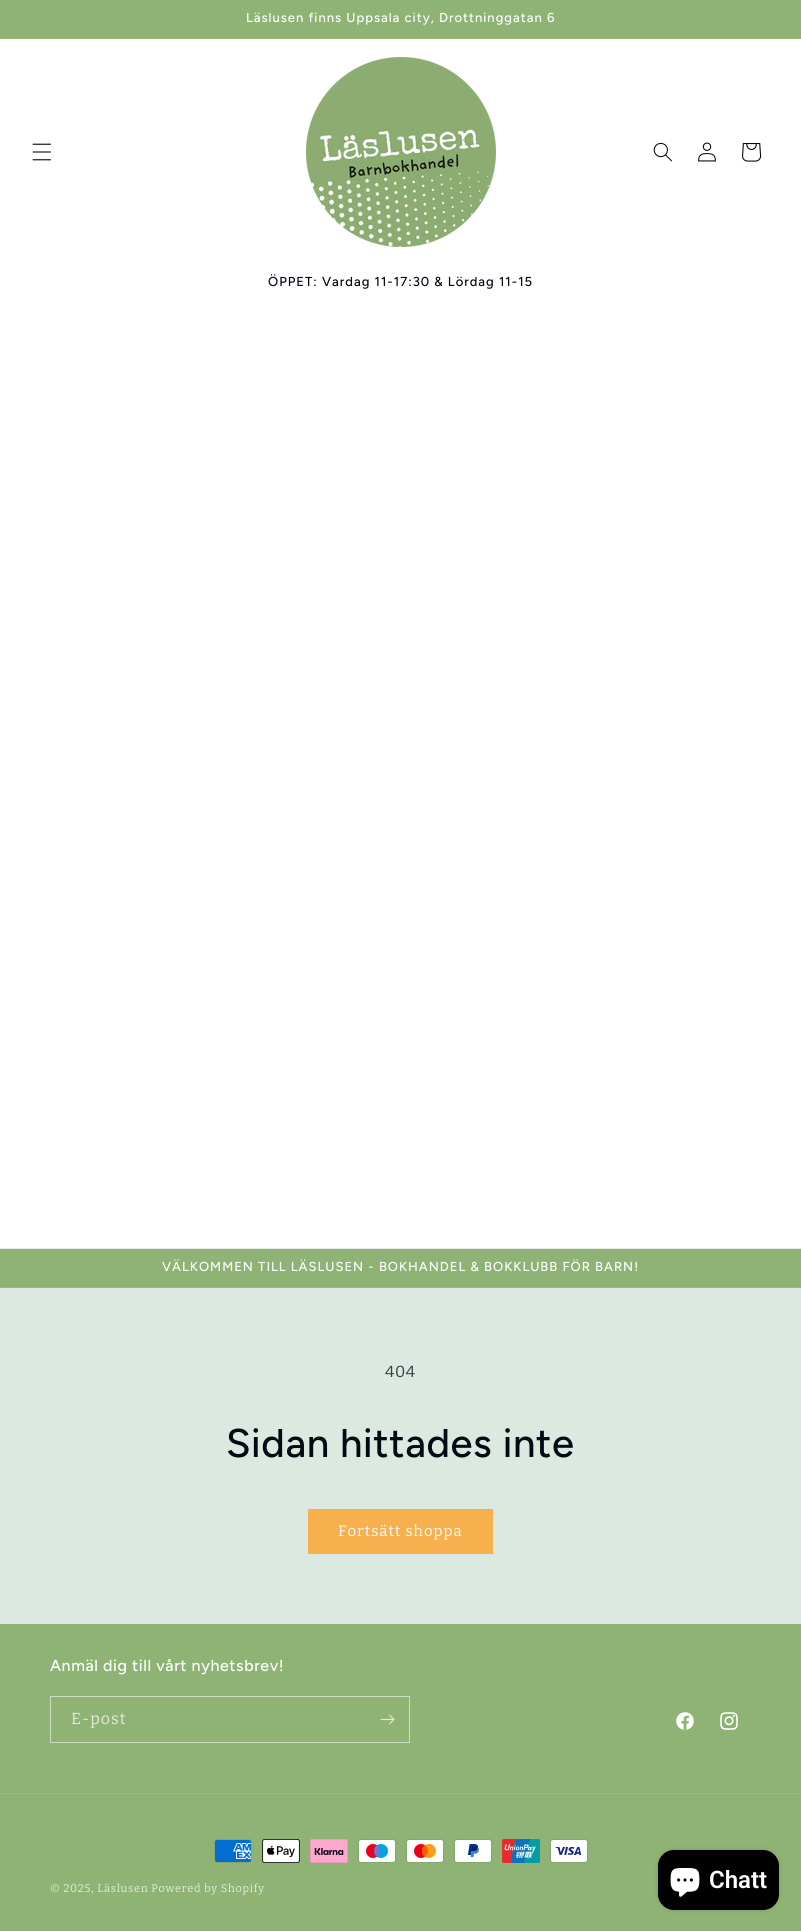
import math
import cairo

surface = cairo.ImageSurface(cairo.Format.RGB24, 801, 1931)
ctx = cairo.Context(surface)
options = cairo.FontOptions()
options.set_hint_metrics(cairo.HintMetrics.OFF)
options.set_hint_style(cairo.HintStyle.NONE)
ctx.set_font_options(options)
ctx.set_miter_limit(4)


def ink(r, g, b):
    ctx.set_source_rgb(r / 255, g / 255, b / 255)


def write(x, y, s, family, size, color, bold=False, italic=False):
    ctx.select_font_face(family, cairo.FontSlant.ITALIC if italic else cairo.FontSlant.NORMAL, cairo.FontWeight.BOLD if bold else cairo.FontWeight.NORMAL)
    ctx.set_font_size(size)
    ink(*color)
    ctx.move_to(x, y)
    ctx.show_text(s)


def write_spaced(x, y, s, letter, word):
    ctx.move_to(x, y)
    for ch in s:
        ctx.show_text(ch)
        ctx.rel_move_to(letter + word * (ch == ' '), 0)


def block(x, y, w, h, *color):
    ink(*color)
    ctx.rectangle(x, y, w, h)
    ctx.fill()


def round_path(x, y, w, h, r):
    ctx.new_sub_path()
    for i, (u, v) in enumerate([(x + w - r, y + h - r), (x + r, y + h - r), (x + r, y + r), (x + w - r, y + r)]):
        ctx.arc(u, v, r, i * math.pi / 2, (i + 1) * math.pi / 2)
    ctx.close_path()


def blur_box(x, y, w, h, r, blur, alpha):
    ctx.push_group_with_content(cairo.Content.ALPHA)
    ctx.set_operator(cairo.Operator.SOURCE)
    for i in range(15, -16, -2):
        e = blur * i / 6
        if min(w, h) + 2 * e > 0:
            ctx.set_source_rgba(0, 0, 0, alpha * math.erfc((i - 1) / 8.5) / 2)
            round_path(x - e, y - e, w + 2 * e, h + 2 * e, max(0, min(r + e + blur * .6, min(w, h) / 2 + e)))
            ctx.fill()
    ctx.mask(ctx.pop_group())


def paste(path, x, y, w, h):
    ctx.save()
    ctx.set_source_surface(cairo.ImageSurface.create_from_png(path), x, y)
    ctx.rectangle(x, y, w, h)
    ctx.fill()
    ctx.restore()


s1 = dict(family="Roboto SemiBold", size=24, color=(255, 255, 255))

ink(219, 233, 224)
ctx.paint()
block(0, 0, 801, 38, 143, 179, 116)
block(0, 38, 801, 1, 152, 185, 127)
ctx.select_font_face("Figtree Medium")
ctx.set_font_size(13)
ink(255, 255, 255)
write_spaced(246, 22, "Läslusen finns Uppsala city, Drottninggatan 6", 1, 0)
block(0, 39, 801, 1209, 255, 255, 255)
paste("pic1.png", 32, 143, 20, 18)
paste("pic2.png", 306, 57, 190, 190)
paste("pic3.png", 653, 142, 19, 20)
paste("pic4.png", 698, 142, 18, 20)
paste("pic5.png", 742, 143, 20, 19)
block(0, 1248, 801, 1, 235, 235, 236)
ink(2, 9, 18)
write_spaced(268, 286, "ÖPPET: Vardag 11-17:30 & Lördag 11-15", 1, 0)
block(0, 1249, 801, 38, 143, 179, 116)
block(0, 1287, 801, 1, 152, 185, 127)
ink(255, 255, 255)
write_spaced(162, 1271, "VÄLKOMMEN TILL LÄSLUSEN - BOKHANDEL & BOKKLUBB FÖR BARN!", 1, 0)
ctx.select_font_face("Bitter")
ctx.set_font_size(16)
ink(56, 65, 70)
write_spaced(385, 1377, "404", 0.6, 0)
ctx.select_font_face("Figtree Medium")
ctx.set_font_size(40)
ink(2, 9, 18)
write_spaced(226, 1457, "Sidan hittades inte", 0.6, 0)
block(308, 1509, 185, 45, 247, 176, 77)
ctx.select_font_face("Bitter")
ctx.set_font_size(15)
ink(255, 255, 255)
write_spaced(338, 1536, "Fortsätt shoppa", 1, 0)
block(0, 1624, 801, 307, 143, 179, 116)
ctx.select_font_face("Figtree Medium")
ctx.set_font_size(16)
ink(255, 255, 255)
write_spaced(50, 1671, "Anmäl dig till vårt nyhetsbrev!", 0.6, 0)
ctx.rectangle(50.5, 1696.5, 359, 46)
ink(205, 221, 192)
ctx.set_line_width(1)
ctx.stroke()
ctx.select_font_face("Bitter")
ink(227, 236, 220)
write_spaced(71, 1724, "E-post", 1, 0)
paste("pic6.png", 380, 1714, 15, 11)
paste("pic7.png", 676, 1712, 18, 18)
paste("pic8.png", 720, 1712, 18, 18)
block(0, 1793, 801, 1, 152, 185, 127)
paste("pic9.png", 214, 1839, 38, 24)
paste("pic10.png", 262, 1839, 38, 24)
paste("pic11.png", 310, 1839, 38, 24)
paste("pic12.png", 358, 1839, 38, 24)
paste("pic13.png", 406, 1839, 38, 24)
paste("pic14.png", 454, 1839, 38, 24)
paste("pic15.png", 502, 1839, 38, 24)
paste("pic16.png", 550, 1839, 38, 24)
ctx.set_font_size(11)
ink(227, 236, 220)
write_spaced(50, 1892, "© 2025, Läslusen Powered by Shopify", 0.7, 0)
ink(0, 0, 0)
blur_box(658, 1850, 121, 60, 16, 2.5, 0.15)
ink(0, 0, 0)
round_path(658, 1850, 121, 60, 16)
ctx.fill()
paste("pic17.png", 670, 1868, 30, 29)
write(709, 1888, "Chatt", **s1)
surface.write_to_png("screenshot.png")
